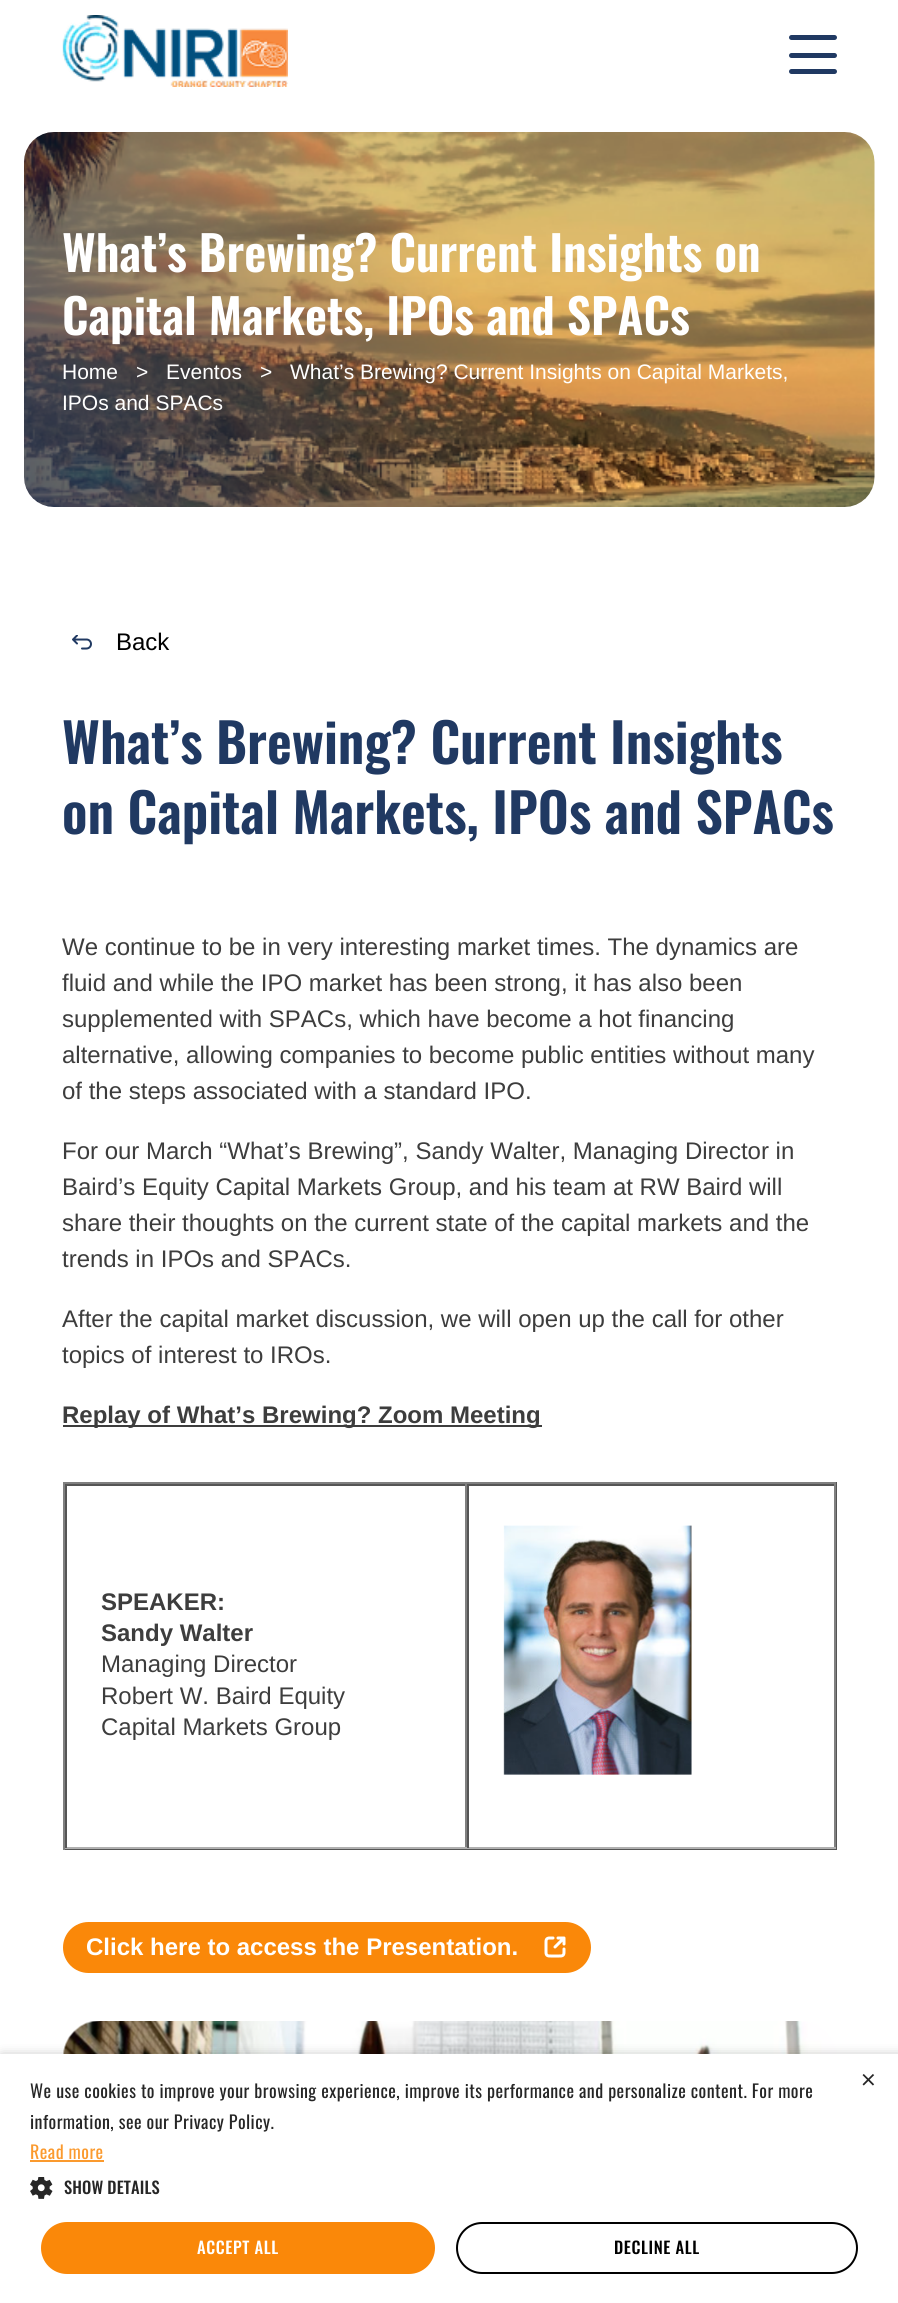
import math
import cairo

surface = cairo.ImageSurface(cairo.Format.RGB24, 898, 2303)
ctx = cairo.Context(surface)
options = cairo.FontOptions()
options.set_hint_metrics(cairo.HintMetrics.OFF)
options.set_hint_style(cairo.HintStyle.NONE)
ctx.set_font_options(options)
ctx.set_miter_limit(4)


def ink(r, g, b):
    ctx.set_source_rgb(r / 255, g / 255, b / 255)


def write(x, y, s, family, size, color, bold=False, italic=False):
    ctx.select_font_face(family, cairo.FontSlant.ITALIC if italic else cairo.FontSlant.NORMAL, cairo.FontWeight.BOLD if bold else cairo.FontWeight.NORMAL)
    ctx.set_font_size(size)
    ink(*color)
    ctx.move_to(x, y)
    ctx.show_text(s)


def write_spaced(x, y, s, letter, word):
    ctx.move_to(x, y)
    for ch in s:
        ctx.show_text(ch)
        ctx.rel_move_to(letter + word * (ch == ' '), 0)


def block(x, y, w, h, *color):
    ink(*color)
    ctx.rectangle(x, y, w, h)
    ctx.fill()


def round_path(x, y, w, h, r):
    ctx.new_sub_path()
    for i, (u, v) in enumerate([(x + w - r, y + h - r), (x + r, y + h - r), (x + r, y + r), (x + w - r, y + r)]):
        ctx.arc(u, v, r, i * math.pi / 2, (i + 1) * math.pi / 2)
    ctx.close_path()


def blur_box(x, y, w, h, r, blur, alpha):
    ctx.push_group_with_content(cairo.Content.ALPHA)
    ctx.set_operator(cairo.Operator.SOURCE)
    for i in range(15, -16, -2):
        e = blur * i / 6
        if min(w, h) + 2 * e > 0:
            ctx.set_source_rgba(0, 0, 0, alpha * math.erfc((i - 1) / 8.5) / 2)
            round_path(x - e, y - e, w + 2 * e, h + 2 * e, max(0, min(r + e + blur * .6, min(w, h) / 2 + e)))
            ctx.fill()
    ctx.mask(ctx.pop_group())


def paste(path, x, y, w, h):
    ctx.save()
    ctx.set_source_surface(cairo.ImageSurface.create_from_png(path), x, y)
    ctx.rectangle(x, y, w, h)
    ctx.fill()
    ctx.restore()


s1 = dict(family="Oswald SemiBold", size=48, color=(255, 255, 255))
s2 = dict(family="Liberation Sans", size=21, color=(255, 255, 255))
s3 = dict(family="Liberation Sans", size=24, color=(0, 0, 0))
s4 = dict(family="Oswald SemiBold", size=54, color=(32, 57, 98))
s5 = dict(family="Liberation Sans", size=24, color=(61, 61, 61))
s6 = dict(family="Liberation Sans", size=24, color=(61, 61, 61), bold=True)
s7 = dict(family="Liberation Sans", size=24, color=(255, 255, 255), bold=True)
s8 = dict(family="Oswald ExtraLight", size=44, color=(38, 38, 38))

ink(255, 255, 255)
ctx.paint()
paste("pic1.png", 62, 15, 226, 72)
ink(32, 57, 98)
round_path(789, 35, 48, 5, 2.5)
ctx.fill()
round_path(789, 53, 48, 5, 2.5)
ctx.fill()
round_path(789, 69, 48, 5, 2.5)
ctx.fill()
paste("pic2.png", 24, 132, 851, 375)
write(62, 272, "What’s Brewing? Current Insights on", **s1)
write(62, 335, "Capital Markets, IPOs and SPACs", **s1)
write(62, 379, "Home", **s2)
write(136, 379, ">", **s2)
write(166, 379, "Eventos", **s2)
write(260, 379, ">", **s2)
write(290, 379, "What’s Brewing? Current Insights on Capital Markets,", **s2)
write(62, 410, "IPOs and SPACs", **s2)
paste("pic3.png", 72, 635, 20, 15)
write(116, 650, "Back", **s3)
write(62, 764, "What’s Brewing? Current Insights", **s4)
write(62, 834, "on Capital Markets, IPOs and SPACs", **s4)
write(62, 955, "We continue to be in very interesting market times. The dynamics are", **s5)
write(62, 991, "fluid and while the IPO market has been strong, it has also been", **s5)
write(62, 1027, "supplemented with SPACs, which have become a hot financing", **s5)
write(62, 1063, "alternative, allowing companies to become public entities without many", **s5)
write(62, 1099, "of the steps associated with a standard IPO.", **s5)
write(62, 1159, "For our March “What’s Brewing”, Sandy Walter, Managing Director in", **s5)
write(62, 1195, "Baird’s Equity Capital Markets Group, and his team at RW Baird will", **s5)
write(62, 1231, "share their thoughts on the current state of the capital markets and the", **s5)
write(62, 1267, "trends in IPOs and SPACs.", **s5)
write(62, 1327, "After the capital market discussion, we will open up the call for other", **s5)
write(62, 1363, "topics of interest to IROs.", **s5)
block(63, 1425, 479, 2, 61, 61, 61)
write(62, 1423, "Replay of What’s Brewing? Zoom Meeting", **s6)
block(63, 1482, 774, 2, 128, 128, 128)
block(836, 1482, 1, 368, 85, 85, 85)
block(63, 1848, 774, 2, 85, 85, 85)
block(63, 1482, 2, 368, 128, 128, 128)
block(65, 1484, 771, 2, 85, 85, 85)
block(465, 1484, 2, 364, 128, 128, 128)
block(65, 1847, 402, 2, 176, 176, 176)
block(65, 1484, 2, 364, 85, 85, 85)
write(101, 1610, "SPEAKER:", **s6)
write(101, 1641, "Sandy Walter", **s6)
write(101, 1672, "Managing Director", **s5)
write(101, 1704, "Robert W. Baird Equity", **s5)
write(101, 1735, "Capital Markets Group", **s5)
block(834, 1484, 2, 364, 128, 128, 128)
block(467, 1847, 369, 2, 176, 176, 176)
block(467, 1484, 2, 364, 85, 85, 85)
paste("pic4.png", 503, 1525, 189, 250)
ink(250, 136, 9)
round_path(63, 1922, 528, 51, 25.5)
ctx.fill()
write(86, 1955, "Click here to access the Presentation.", **s7)
paste("pic5.png", 544, 1936, 22, 22)
paste("pic6.png", 63, 2021, 774, 33)
ink(0, 0, 0)
blur_box(2, 2057, 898, 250, 0, 6, 0.35)
block(0, 2054, 898, 249, 255, 255, 255)
write(861, 2098, "×", **s8)
ctx.select_font_face("Oswald")
ctx.set_font_size(18)
write_spaced(30, 2098, "We use cookies to improve your browsing experience, improve its performance and personalize content. For more", 0.45, 0)
write_spaced(30, 2129, "information, see our Privacy Policy.", 0.45, 0)
ink(251, 154, 46)
write_spaced(30, 2159, "Read more", 0.45, 0)
block(30, 2160, 74, 2, 251, 154, 46)
paste("pic7.png", 30, 2177, 23, 22)
ctx.select_font_face("Oswald Medium")
ctx.set_font_size(16.5)
ink(38, 38, 38)
write_spaced(64, 2194, "SHOW DETAILS", 0.1, 0)
ink(250, 136, 9)
round_path(41, 2222, 394, 52, 26)
ctx.fill()
ink(255, 255, 255)
write_spaced(197, 2254, "ACCEPT ALL", 0.6, 0)
round_path(457, 2223, 400, 50, 25)
ink(0, 0, 0)
ctx.stroke()
write_spaced(614, 2254, "DECLINE ALL", 0.6, 0)
surface.write_to_png("screenshot.png")
